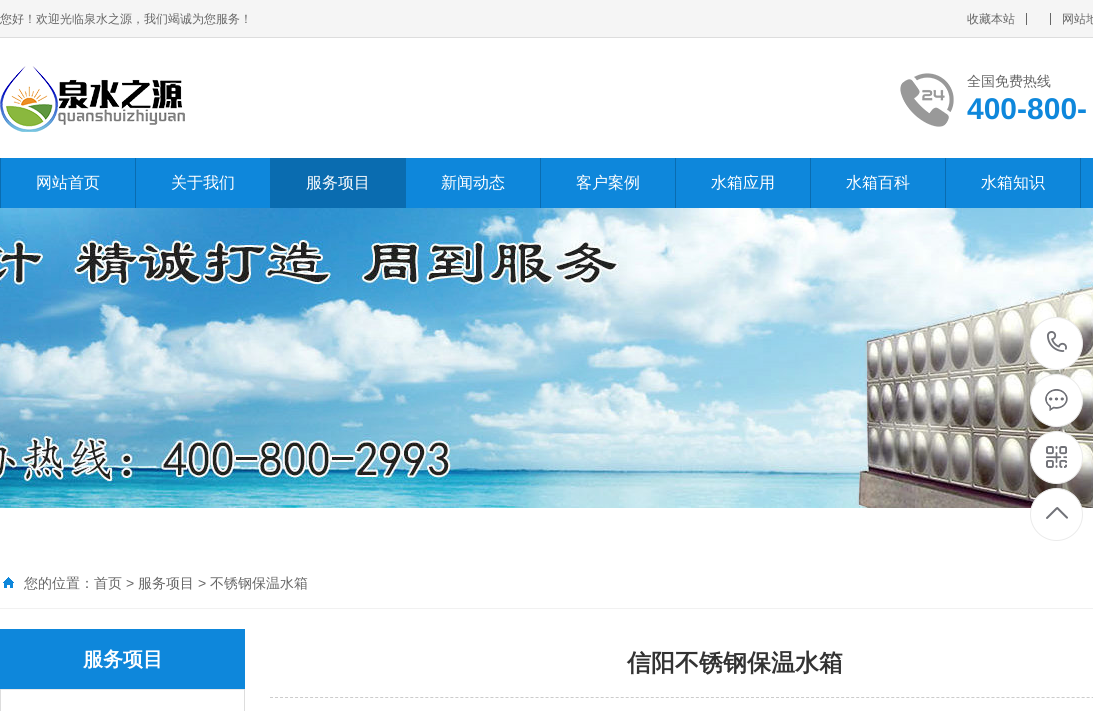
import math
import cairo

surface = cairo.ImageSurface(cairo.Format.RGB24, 1093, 711)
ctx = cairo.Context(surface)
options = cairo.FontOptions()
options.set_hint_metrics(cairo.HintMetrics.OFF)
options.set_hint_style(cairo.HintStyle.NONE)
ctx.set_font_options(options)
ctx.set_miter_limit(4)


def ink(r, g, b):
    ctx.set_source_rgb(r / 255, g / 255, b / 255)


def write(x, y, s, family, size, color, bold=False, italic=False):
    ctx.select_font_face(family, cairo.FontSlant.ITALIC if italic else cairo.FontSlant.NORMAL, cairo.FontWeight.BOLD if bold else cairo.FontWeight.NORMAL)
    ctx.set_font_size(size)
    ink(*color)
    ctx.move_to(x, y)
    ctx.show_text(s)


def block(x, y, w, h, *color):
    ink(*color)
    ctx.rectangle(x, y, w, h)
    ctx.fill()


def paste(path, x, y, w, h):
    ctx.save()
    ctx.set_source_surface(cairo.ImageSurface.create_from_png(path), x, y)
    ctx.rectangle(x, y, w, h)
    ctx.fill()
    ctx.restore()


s1 = dict(family="WenQuanYi Zen Hei Medium", size=12, color=(102, 102, 102))
s2 = dict(family="WenQuanYi Zen Hei Medium", size=14, color=(102, 102, 102))
s3 = dict(family="Liberation Sans", size=30, color=(14, 135, 219), bold=True)
s4 = dict(family="WenQuanYi Zen Hei Medium", size=16, color=(255, 255, 255))
s5 = dict(family="Liberation Sans", size=14, color=(102, 102, 102))
s6 = dict(family="WenQuanYi Zen Hei", size=20, color=(255, 255, 255), bold=True)
s7 = dict(family="WenQuanYi Zen Hei", size=24, color=(51, 51, 51), bold=True)

ink(255, 255, 255)
ctx.paint()
block(0, 0, 1093, 37, 245, 245, 245)
block(0, 37, 1093, 1, 221, 221, 221)
write(0, 23, "您好！欢迎光临泉水之源，我们竭诚为您服务！", **s1)
write(967, 23, "收藏本站", **s1)
block(1026, 13, 1, 12, 102, 102, 102)
block(1050, 13, 1, 12, 102, 102, 102)
write(1062, 23, "网站地", **s1)
paste("pic1.png", 0, 58, 485, 80)
paste("pic2.png", 900, 73, 54, 54)
write(967, 86, "全国免费热线", **s2)
write(967, 119, "400-800-", **s3)
block(1, 158, 1092, 50, 14, 135, 219)
block(135, 158, 1, 50, 10, 108, 176)
block(0, 158, 1, 50, 10, 108, 176)
write(36, 188, "网站首页", **s4)
block(270, 158, 1, 50, 10, 108, 176)
write(171, 188, "关于我们", **s4)
block(271, 158, 135, 50, 10, 108, 176)
write(306, 188, "服务项目", **s4)
block(540, 158, 1, 50, 10, 108, 176)
write(441, 188, "新闻动态", **s4)
block(675, 158, 1, 50, 10, 108, 176)
write(576, 188, "客户案例", **s4)
block(810, 158, 1, 50, 10, 108, 176)
write(711, 188, "水箱应用", **s4)
block(945, 158, 1, 50, 10, 108, 176)
write(846, 188, "水箱百科", **s4)
block(1080, 158, 1, 50, 10, 108, 176)
write(981, 188, "水箱知识", **s4)
paste("pic3.png", 0, 208, 1093, 300)
ctx.arc(1056.5, 343.5, 26, 0, 2 * math.pi)
ctx.fill_preserve()
ink(235, 235, 235)
ctx.set_line_width(1)
ctx.stroke()
paste("pic4.png", 1047, 331, 20, 21)
ink(255, 255, 255)
ctx.arc(1056.5, 400.5, 26, 0, 2 * math.pi)
ctx.fill_preserve()
ink(235, 235, 235)
ctx.stroke()
paste("pic5.png", 1045, 389, 23, 22)
ink(255, 255, 255)
ctx.arc(1056.5, 457.5, 26, 0, 2 * math.pi)
ctx.fill_preserve()
ink(235, 235, 235)
ctx.stroke()
paste("pic6.png", 1046, 446, 21, 22)
ink(255, 255, 255)
ctx.arc(1056.5, 514.5, 26, 0, 2 * math.pi)
ctx.fill_preserve()
ink(235, 235, 235)
ctx.stroke()
paste("pic7.png", 1046, 507, 22, 12)
block(0, 608, 1093, 1, 241, 241, 241)
paste("pic8.png", 3, 577, 11, 11)
write(24, 588, "您的位置：首页", **s2)
write(126, 588, ">", **s5)
write(138, 588, "服务项目", **s2)
write(198, 588, ">", **s5)
write(210, 588, "不锈钢保温水箱", **s2)
block(0, 629, 245, 60, 14, 135, 219)
write(83, 666, "服务项目", **s6)
block(244, 689, 1, 22, 221, 221, 221)
block(0, 689, 1, 22, 221, 221, 221)
block(1, 689, 243, 1, 234, 234, 234)
ctx.new_path()
ctx.move_to(270, 697.5)
ctx.line_to(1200, 697.5)
ink(204, 204, 204)
ctx.set_dash([3, 2.01])
ctx.stroke()
write(627, 671, "信阳不锈钢保温水箱", **s7)
surface.write_to_png("screenshot.png")
